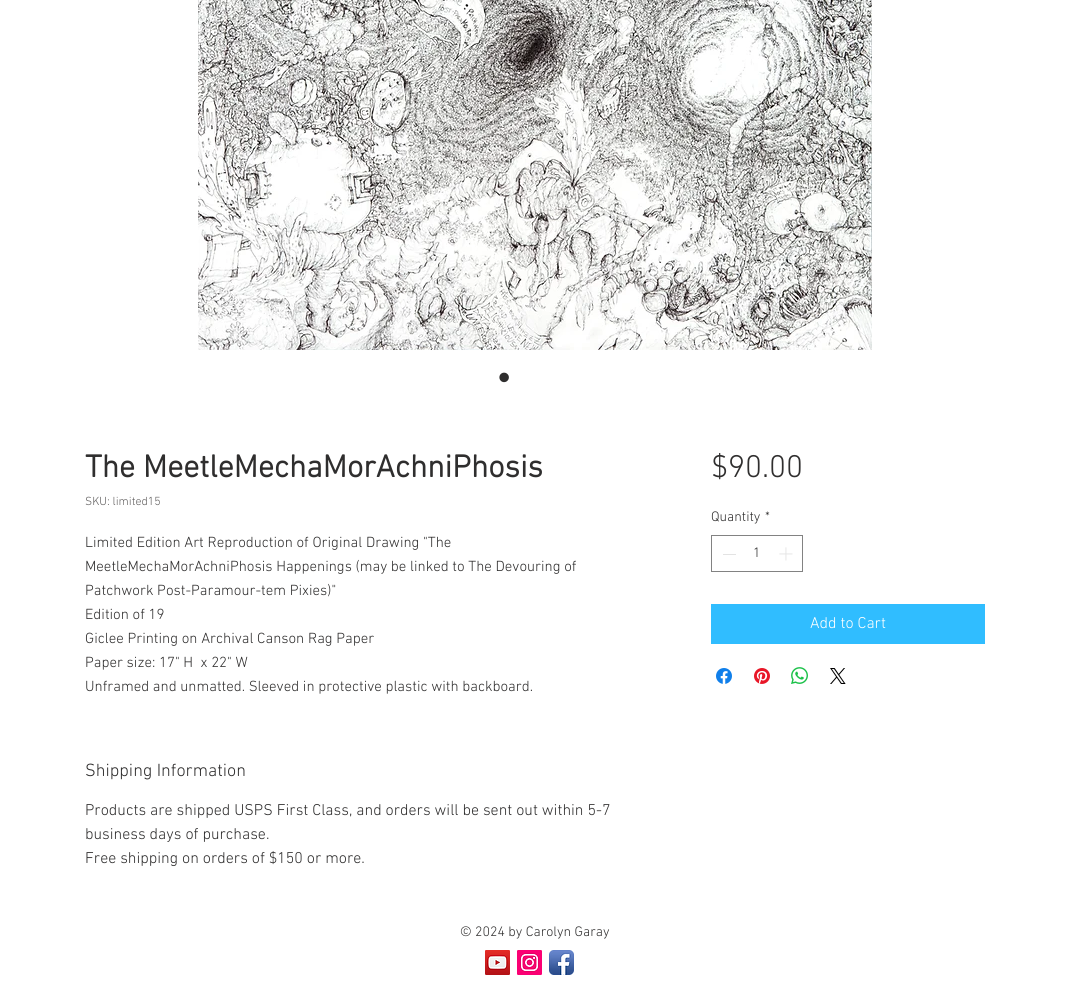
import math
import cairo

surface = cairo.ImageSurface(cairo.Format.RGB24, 1069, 998)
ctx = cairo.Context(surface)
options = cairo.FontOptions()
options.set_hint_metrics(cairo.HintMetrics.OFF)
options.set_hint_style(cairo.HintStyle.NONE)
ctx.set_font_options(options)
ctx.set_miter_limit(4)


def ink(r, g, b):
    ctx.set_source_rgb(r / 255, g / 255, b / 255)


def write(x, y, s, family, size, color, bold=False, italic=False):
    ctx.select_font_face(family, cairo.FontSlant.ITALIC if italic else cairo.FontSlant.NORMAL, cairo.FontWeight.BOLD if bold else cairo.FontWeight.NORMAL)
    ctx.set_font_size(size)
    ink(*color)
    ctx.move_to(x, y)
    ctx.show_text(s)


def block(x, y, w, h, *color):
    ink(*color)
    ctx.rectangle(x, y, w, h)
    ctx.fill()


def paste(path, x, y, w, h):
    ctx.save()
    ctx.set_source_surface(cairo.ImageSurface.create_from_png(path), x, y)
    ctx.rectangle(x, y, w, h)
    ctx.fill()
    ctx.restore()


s1 = dict(family="Liberation Sans", size=35, color=(47, 46, 46))
s2 = dict(family="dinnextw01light", size=32, color=(47, 46, 46), bold=True)
s3 = dict(family="dinnextw01light Light", size=12, color=(96, 94, 94))
s4 = dict(family="dinnextw01light Light", size=15, color=(47, 46, 46))
s5 = dict(family="dinnextw01light Light", size=18, color=(47, 46, 46))
s6 = dict(family="dinnextw01light Light", size=16, color=(47, 46, 46))
s7 = dict(family="dinnextw01light Light", size=32, color=(47, 46, 46))
s8 = dict(family="dinnextw01light Light", size=14, color=(47, 46, 46))
s9 = dict(family="dinnextw01light Light", size=16, color=(255, 255, 255))

ink(255, 255, 255)
ctx.paint()
paste("pic1.png", 198, 0, 674, 350)
write(498, 389, "•", **s1)
write(85, 477, "The MeetleMechaMorAchniPhosis", **s2)
write(85, 505, "SKU: limited15", **s3)
write(85, 547, "Limited Edition Art Reproduction of Original Drawing \"The", **s4)
write(85, 571, "MeetleMechaMorAchniPhosis Happenings (may be linked to The Devouring of", **s4)
write(85, 595, "Patchwork Post-Paramour-tem Pixies)\"", **s4)
write(85, 619, "Edition of 19", **s4)
write(85, 643, "Giclee Printing on Archival Canson Rag Paper", **s4)
write(85, 667, "Paper size: 17\" H  x 22\" W", **s4)
write(85, 691, "Unframed and unmatted. Sleeved in protective plastic with backboard.", **s4)
write(85, 776, "Shipping Information", **s5)
write(85, 815, "Products are shipped USPS First Class, and orders will be sent out within 5-7", **s6)
write(85, 839, "business days of purchase.", **s6)
write(85, 863, "Free shipping on orders of $150 or more.", **s6)
write(711, 477, "$90.00", **s7)
write(711, 521, "Quantity", **s8)
write(765, 521, "*", **s8)
ctx.rectangle(711.5, 535.5, 91, 36)
ink(130, 130, 130)
ctx.set_line_width(1)
ctx.stroke()
block(723, 554, 13, 1, 227, 227, 227)
write(753, 557, "1", **s8)
paste("pic2.png", 779, 547, 14, 14)
block(711, 604, 274, 40, 48, 189, 255)
write(810, 628, "Add to Cart", **s9)
paste("pic3.png", 716, 668, 16, 16)
paste("pic4.png", 754, 668, 16, 16)
paste("pic5.png", 791, 667, 17, 17)
paste("pic6.png", 830, 668, 16, 16)
write(460, 936, "© 2024 by Carolyn Garay", **s8)
paste("pic7.png", 485, 950, 25, 25)
paste("pic8.png", 517, 950, 25, 25)
paste("pic9.png", 549, 950, 25, 25)
surface.write_to_png("screenshot.png")
